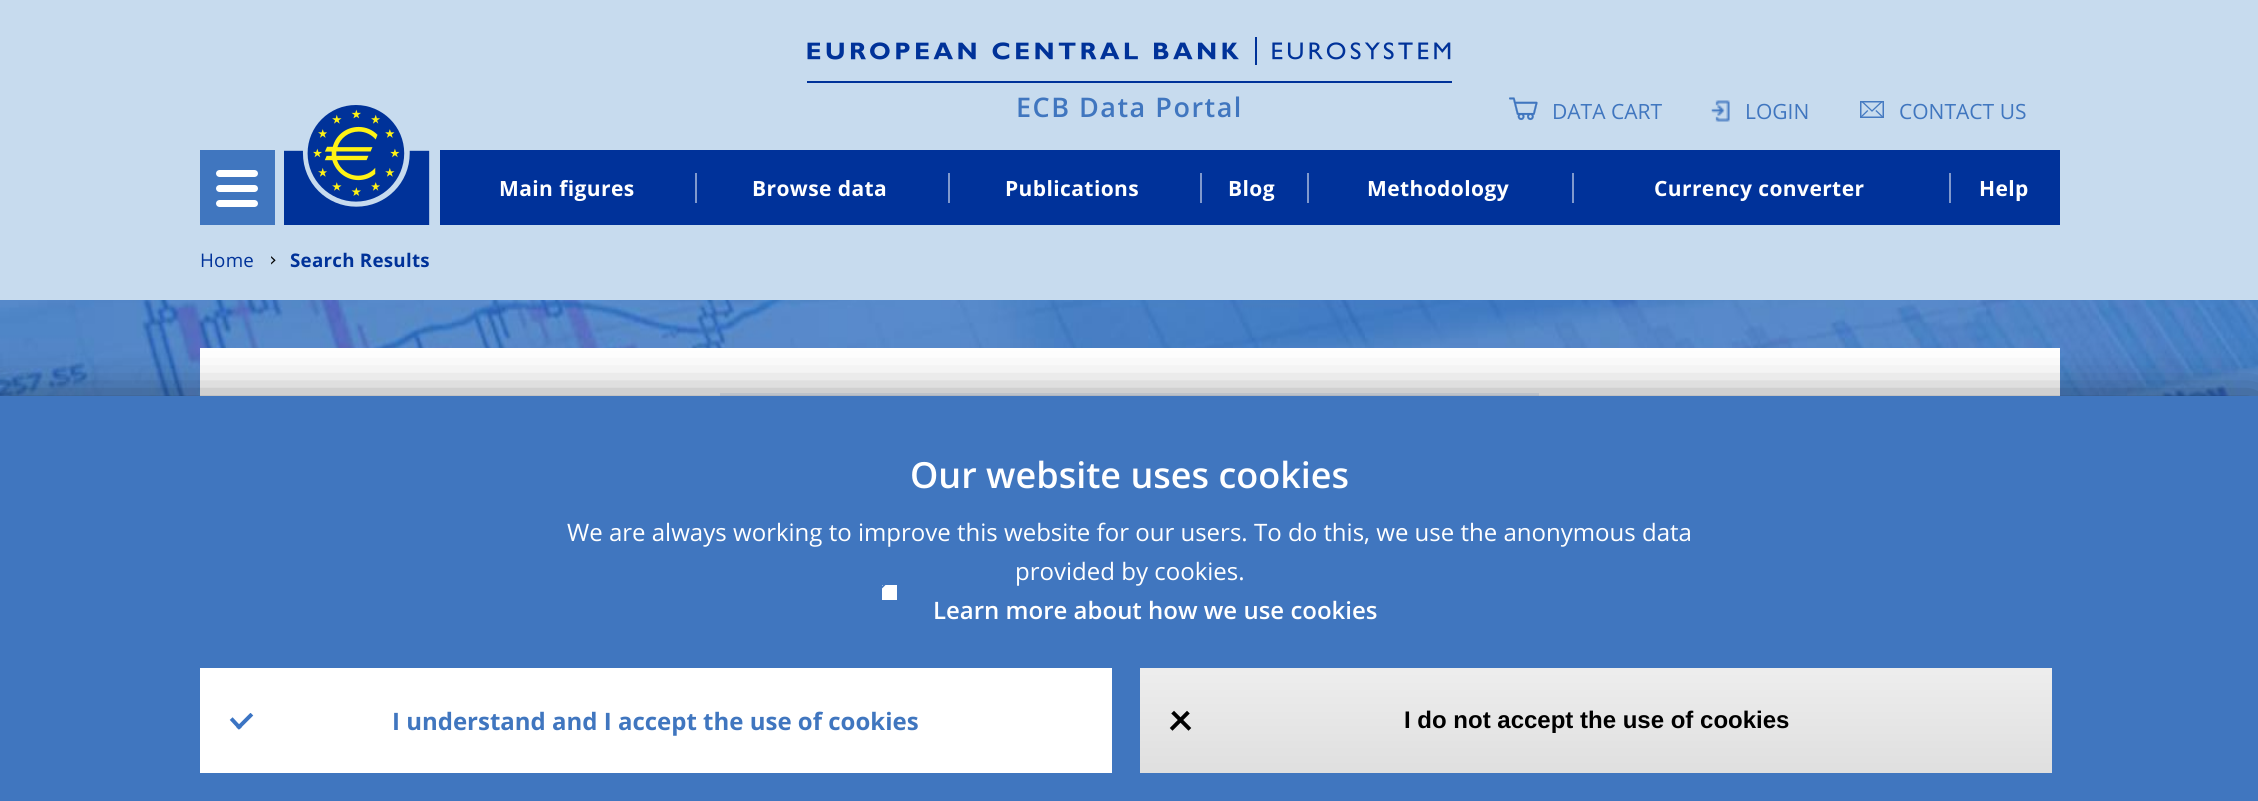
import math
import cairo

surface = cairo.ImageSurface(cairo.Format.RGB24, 2258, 801)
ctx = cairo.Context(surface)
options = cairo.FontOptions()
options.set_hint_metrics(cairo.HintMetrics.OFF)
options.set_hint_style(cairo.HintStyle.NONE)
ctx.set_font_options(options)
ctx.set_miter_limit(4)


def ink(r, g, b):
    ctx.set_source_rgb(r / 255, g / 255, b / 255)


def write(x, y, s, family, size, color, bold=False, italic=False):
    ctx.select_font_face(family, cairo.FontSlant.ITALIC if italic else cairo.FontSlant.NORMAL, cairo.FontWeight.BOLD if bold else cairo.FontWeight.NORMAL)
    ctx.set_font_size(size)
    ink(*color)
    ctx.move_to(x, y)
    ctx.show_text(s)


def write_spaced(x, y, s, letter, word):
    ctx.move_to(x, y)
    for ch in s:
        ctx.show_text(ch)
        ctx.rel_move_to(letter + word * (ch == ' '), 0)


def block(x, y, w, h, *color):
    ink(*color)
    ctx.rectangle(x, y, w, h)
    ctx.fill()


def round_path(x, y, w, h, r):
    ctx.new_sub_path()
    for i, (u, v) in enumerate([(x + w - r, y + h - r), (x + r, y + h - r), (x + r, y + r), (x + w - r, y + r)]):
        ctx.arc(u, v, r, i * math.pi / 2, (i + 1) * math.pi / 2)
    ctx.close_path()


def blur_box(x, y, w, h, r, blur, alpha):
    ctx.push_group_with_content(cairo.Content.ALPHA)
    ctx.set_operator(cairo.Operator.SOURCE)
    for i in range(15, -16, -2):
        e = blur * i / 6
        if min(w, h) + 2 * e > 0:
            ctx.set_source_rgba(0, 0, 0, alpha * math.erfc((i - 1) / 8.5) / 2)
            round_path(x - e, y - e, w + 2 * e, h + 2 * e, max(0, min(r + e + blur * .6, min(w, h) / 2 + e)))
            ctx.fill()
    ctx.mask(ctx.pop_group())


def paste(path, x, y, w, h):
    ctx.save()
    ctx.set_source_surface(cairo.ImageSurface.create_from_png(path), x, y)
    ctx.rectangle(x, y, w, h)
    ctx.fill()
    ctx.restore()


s1 = dict(family="Open Sans", size=21, color=(64, 118, 191))
s2 = dict(family="Open Sans SemiBold", size=36, color=(255, 255, 255))
s3 = dict(family="Open Sans", size=24, color=(255, 255, 255))
s4 = dict(family="Open Sans SemiBold", size=24, color=(255, 255, 255))
s5 = dict(family="Open Sans", size=24, color=(64, 118, 191), bold=True)
s6 = dict(family="Liberation Sans", size=24, color=(0, 0, 0), bold=True)

ink(255, 255, 255)
ctx.paint()
paste("pic1.png", 0, 300, 2258, 96)
block(0, 0, 2258, 300, 199, 219, 238)
paste("pic2.png", 807, 37, 644, 28)
block(807, 81, 645, 2, 0, 50, 153)
ctx.select_font_face("Open Sans SemiBold")
ctx.set_font_size(27)
ink(64, 118, 191)
write_spaced(1016, 117, "ECB Data Portal", 1.5, 0)
paste("pic3.png", 1509, 97, 29, 24)
write(1552, 119, "DATA CART", **s1)
paste("pic4.png", 1711, 100, 19, 22)
write(1745, 119, "LOGIN", **s1)
paste("pic5.png", 1860, 101, 24, 17)
write(1899, 119, "CONTACT US", **s1)
block(200, 150, 75, 75, 64, 118, 191)
ink(255, 255, 255)
round_path(216, 170, 42, 7, 3.5)
ctx.fill()
round_path(216, 185, 42, 7, 3.5)
ctx.fill()
round_path(216, 200, 42, 7, 3.5)
ctx.fill()
paste("pic6.png", 284, 105, 146, 120)
block(440, 150, 1620, 75, 0, 50, 154)
ctx.select_font_face("Open Sans", cairo.FontSlant.NORMAL, cairo.FontWeight.BOLD)
ink(255, 255, 255)
write_spaced(499, 196, "Main figures", 0.4, 0)
block(695, 173, 2, 30, 128, 153, 205)
ink(255, 255, 255)
write_spaced(752, 196, "Browse data", 0.4, 0)
block(948, 173, 2, 30, 128, 153, 205)
ink(255, 255, 255)
write_spaced(1005, 196, "Publications", 0.4, 0)
block(1200, 173, 2, 30, 128, 153, 205)
ink(255, 255, 255)
write_spaced(1228, 196, "Blog", 0.4, 0)
block(1307, 173, 2, 30, 128, 153, 205)
ink(255, 255, 255)
write_spaced(1367, 196, "Methodology", 0.4, 0)
block(1572, 173, 2, 30, 128, 153, 205)
ink(255, 255, 255)
write_spaced(1654, 196, "Currency converter", 0.4, 0)
block(1949, 173, 2, 30, 128, 153, 205)
ink(255, 255, 255)
write_spaced(1979, 196, "Help", 0.4, 0)
ctx.select_font_face("Open Sans")
ctx.set_font_size(18.75)
ink(0, 50, 153)
write_spaced(200, 267, "Home", 0.25, 0)
paste("pic7.png", 271, 256, 5, 9)
ctx.select_font_face("Open Sans", cairo.FontSlant.NORMAL, cairo.FontWeight.BOLD)
write_spaced(290, 267, "Search Results", 0.25, 0)
block(200, 348, 1860, 48, 255, 255, 255)
block(720, 393, 819, 3, 231, 238, 248)
ink(0, 0, 0)
blur_box(0, 399, 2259, 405, 0, 22.5, 0.5)
block(0, 396, 2258, 405, 64, 118, 191)
write(910, 488, "Our website uses cookies", **s2)
write(567, 541, "We are always working to improve this website for our users. To do this, we use the anonymous data", **s3)
write(1015, 580, "provided by cookies.", **s3)
block(882, 585, 15, 15, 255, 255, 255)
ctx.save()
ctx.rectangle(882, 585, 15, 15)
ctx.clip()
ink(64, 118, 191)
ctx.new_path()
ctx.move_to(878.5, 592)
ctx.line_to(885.5, 585)
ctx.line_to(878.5, 578.5)
ctx.line_to(878.5, 581.5)
ctx.line_to(883, 585)
ctx.line_to(878.5, 589)
ctx.close_path()
ctx.fill()
ctx.restore()
write(933, 619, "Learn more about how we use cookies", **s4)
block(200, 668, 912, 105, 255, 255, 255)
ctx.new_path()
ctx.move_to(232.5, 720)
ctx.line_to(239, 727)
ink(59, 116, 195)
ctx.set_line_width(3.9)
ctx.set_line_cap(cairo.LineCap.SQUARE)
ctx.stroke()
ctx.save()
ctx.rectangle(230, 713, 24, 16)
ctx.clip()
ctx.new_path()
ctx.move_to(239, 727)
ctx.line_to(250.5, 715.5)
ctx.stroke()
ctx.restore()
write(392, 730, "I understand and I accept the use of cookies", **s5)
gradient = cairo.LinearGradient(1596, 667, 1596, 773)
gradient.add_color_stop_rgba(0.05, 0.929, 0.929, 0.929, 1)
gradient.add_color_stop_rgba(1, 0.875, 0.875, 0.875, 1)
ctx.set_source(gradient)
ctx.rectangle(1140, 668, 912, 105)
ctx.fill()
ctx.new_path()
ctx.move_to(1188.5, 728)
ctx.line_to(1174, 713.5)
ctx.move_to(1172.5, 728)
ctx.line_to(1187, 713.5)
ink(0, 0, 0)
ctx.stroke()
write(1404, 728, "I do not accept the use of cookies", **s6)
surface.write_to_png("screenshot.png")
